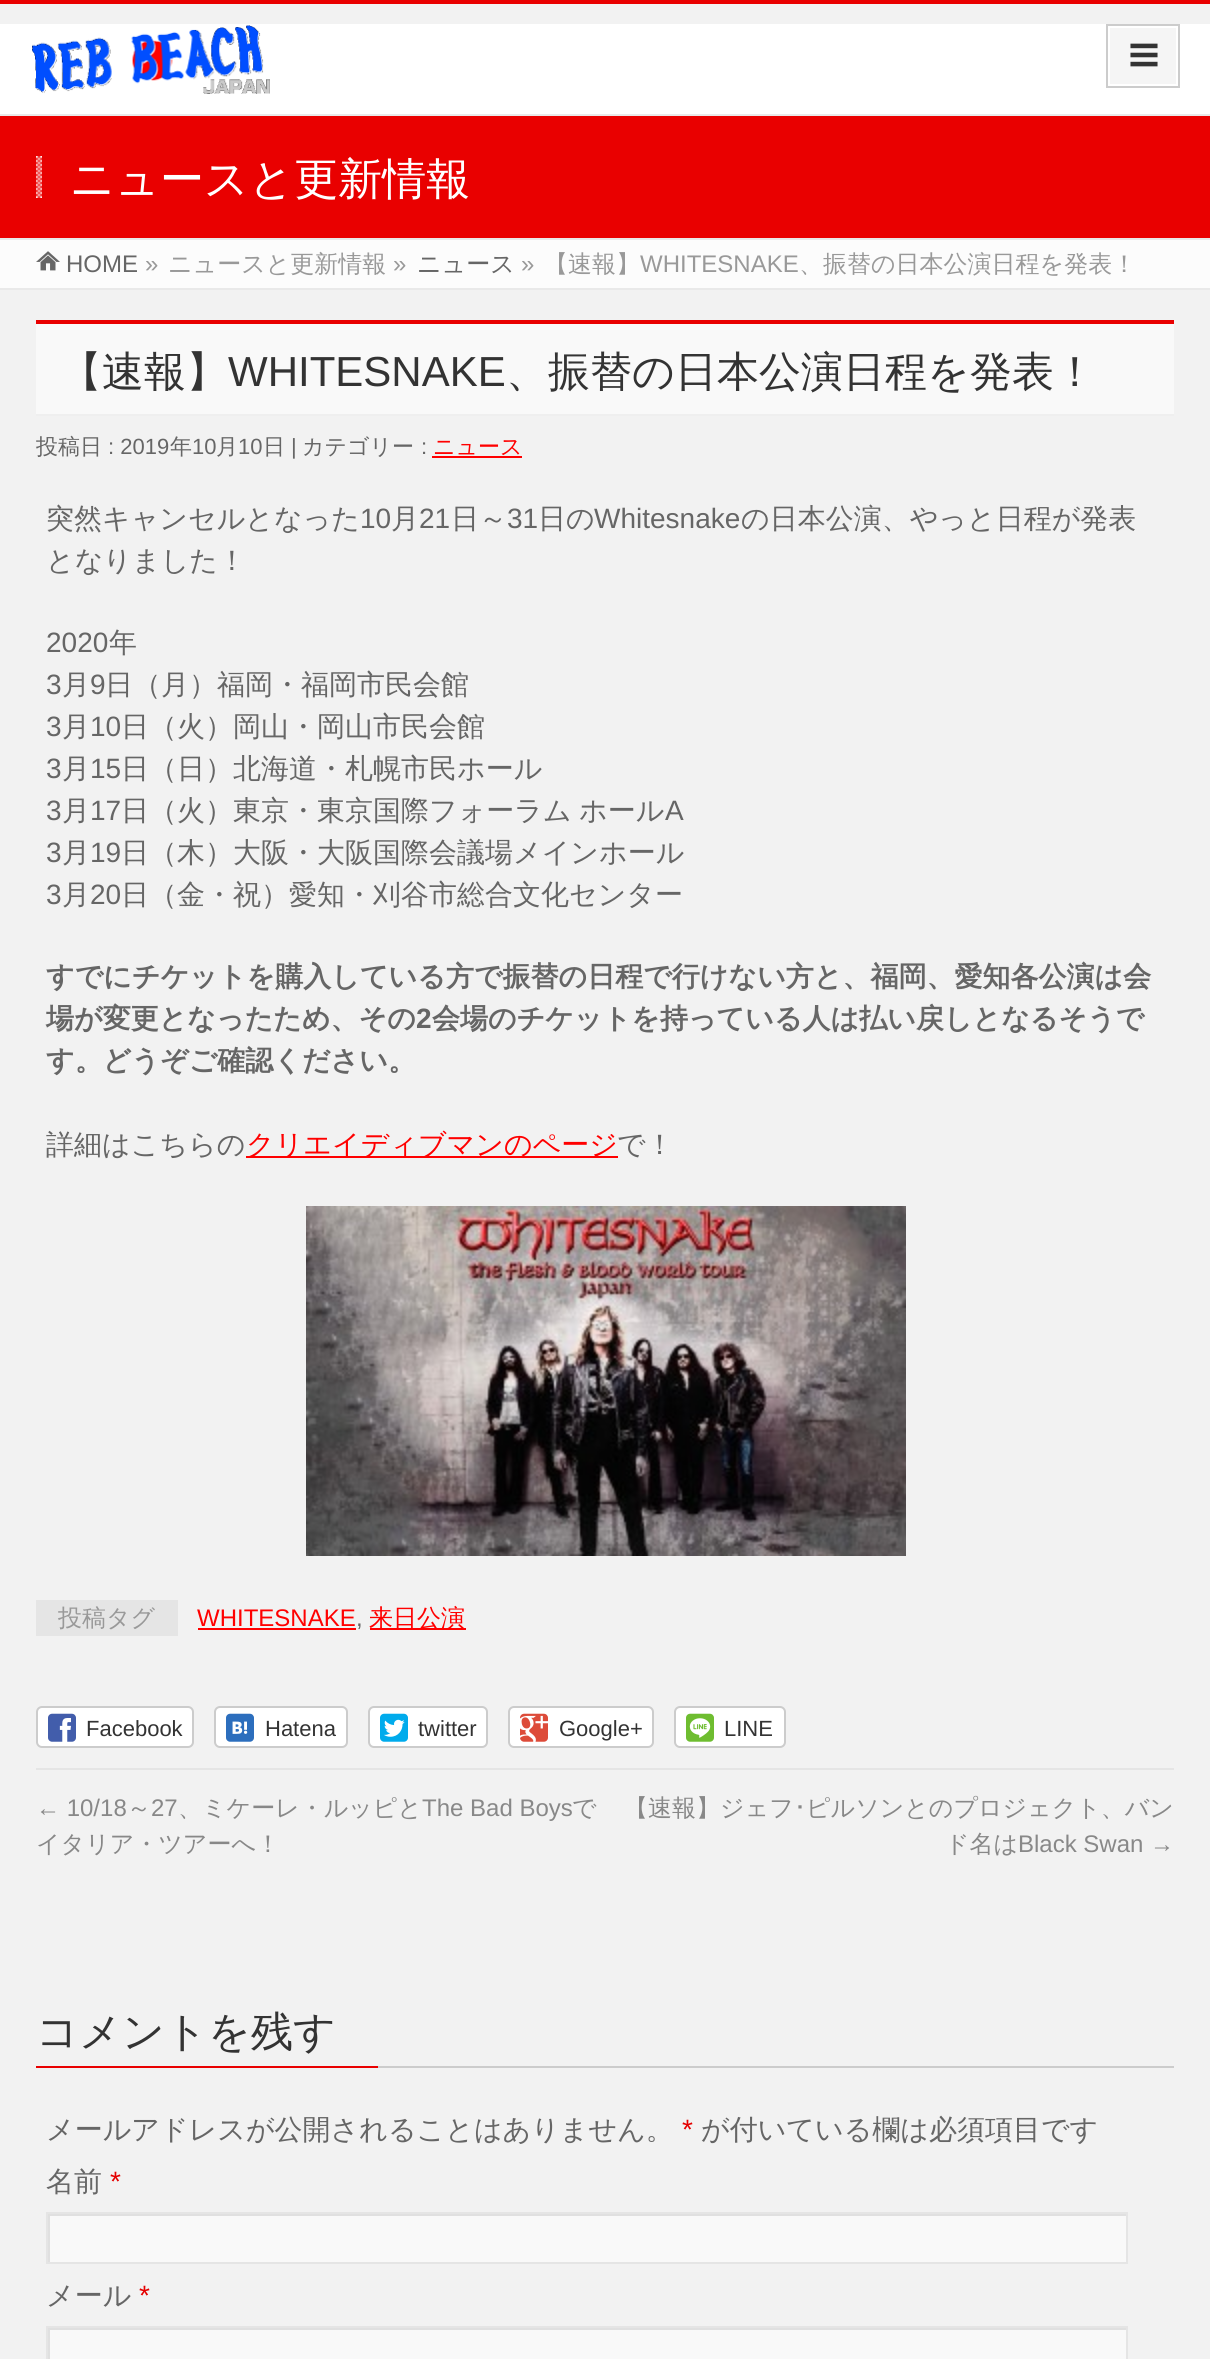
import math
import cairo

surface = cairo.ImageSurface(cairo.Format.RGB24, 1210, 2359)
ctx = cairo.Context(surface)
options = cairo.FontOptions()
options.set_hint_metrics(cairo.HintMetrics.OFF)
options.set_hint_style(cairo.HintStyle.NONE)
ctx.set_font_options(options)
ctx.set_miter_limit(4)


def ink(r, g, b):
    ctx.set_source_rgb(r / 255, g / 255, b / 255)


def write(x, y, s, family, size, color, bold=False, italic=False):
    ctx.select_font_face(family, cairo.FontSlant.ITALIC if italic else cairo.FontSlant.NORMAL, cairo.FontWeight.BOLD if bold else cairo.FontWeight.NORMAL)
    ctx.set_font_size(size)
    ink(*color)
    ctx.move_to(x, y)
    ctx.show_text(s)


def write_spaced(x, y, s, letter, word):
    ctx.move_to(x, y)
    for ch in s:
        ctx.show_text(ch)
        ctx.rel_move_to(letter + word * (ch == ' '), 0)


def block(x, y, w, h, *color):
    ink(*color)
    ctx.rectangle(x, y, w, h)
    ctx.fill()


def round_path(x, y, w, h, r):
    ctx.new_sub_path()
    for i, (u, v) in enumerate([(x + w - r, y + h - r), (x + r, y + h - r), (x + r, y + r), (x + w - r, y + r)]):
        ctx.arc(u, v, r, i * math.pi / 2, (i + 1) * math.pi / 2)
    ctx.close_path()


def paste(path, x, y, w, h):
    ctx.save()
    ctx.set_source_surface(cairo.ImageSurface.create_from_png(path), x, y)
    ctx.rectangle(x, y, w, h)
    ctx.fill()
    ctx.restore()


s1 = dict(family="WenQuanYi Zen Hei Medium", size=44, color=(255, 255, 255))
s2 = dict(family="Liberation Sans", size=24, color=(102, 102, 102))
s3 = dict(family="Liberation Sans", size=24, color=(153, 153, 153))
s4 = dict(family="WenQuanYi Zen Hei Medium", size=24, color=(153, 153, 153))
s5 = dict(family="WenQuanYi Zen Hei Medium", size=24, color=(102, 102, 102))
s6 = dict(family="WenQuanYi Zen Hei Medium", size=42, color=(51, 51, 51))
s7 = dict(family="Liberation Sans", size=42, color=(51, 51, 51))
s8 = dict(family="WenQuanYi Zen Hei Medium", size=22, color=(102, 102, 102))
s9 = dict(family="Liberation Sans", size=22, color=(102, 102, 102))
s10 = dict(family="WenQuanYi Zen Hei Medium", size=22, color=(255, 0, 0))
s11 = dict(family="WenQuanYi Zen Hei Medium", size=28, color=(102, 102, 102))
s12 = dict(family="Liberation Sans", size=28, color=(102, 102, 102))
s13 = dict(family="WenQuanYi Zen Hei", size=28, color=(102, 102, 102), bold=True)
s14 = dict(family="Liberation Sans", size=28, color=(102, 102, 102), bold=True)
s15 = dict(family="WenQuanYi Zen Hei Medium", size=28, color=(255, 0, 0))
s16 = dict(family="Liberation Sans", size=24, color=(255, 0, 0))
s17 = dict(family="WenQuanYi Zen Hei Medium", size=24, color=(255, 0, 0))
s18 = dict(family="Liberation Sans", size=22, color=(51, 51, 51))
s19 = dict(family="Liberation Sans", size=24, color=(136, 136, 136))
s20 = dict(family="WenQuanYi Zen Hei Medium", size=24, color=(136, 136, 136))
s21 = dict(family="IPAPGothic", size=24, color=(136, 136, 136))
s22 = dict(family="Liberation Sans", size=28, color=(229, 0, 0))

ink(242, 242, 242)
ctx.paint()
block(0, 0, 1210, 4, 233, 0, 0)
block(0, 24, 1210, 90, 255, 255, 255)
paste("pic1.png", 32, 25, 238, 69)
block(1110, 28, 66, 56, 245, 245, 245)
ctx.rectangle(1107, 25, 72, 62)
ink(204, 204, 204)
ctx.stroke()
paste("pic2.png", 1130, 43, 28, 24)
block(0, 116, 1210, 122, 233, 0, 0)
block(0, 114, 1210, 2, 233, 233, 233)
block(0, 238, 1210, 2, 233, 233, 233)
paste("pic3.png", 36, 156, 6, 42)
write(70, 194, "ニュースと更新情報", **s1)
block(0, 240, 1210, 48, 252, 252, 252)
paste("pic4.png", 36, 251, 24, 20)
write(66, 272, "HOME", **s2)
write(145, 272, "»", **s3)
write(168, 272, "ニュースと更新情報", **s4)
write(393, 272, "»", **s3)
write(417, 272, "ニュース", **s5)
write(521, 272, "»", **s3)
write(544, 272, "【速報】", **s4)
write(640, 272, "WHITESNAKE", **s3)
write(799, 272, "、振替の日本公演日程を発表！", **s4)
block(0, 288, 1210, 2, 233, 233, 233)
block(36, 324, 1138, 90, 249, 249, 249)
block(36, 320, 1138, 4, 233, 0, 0)
block(36, 414, 1138, 2, 239, 239, 239)
write(60, 386, "【速報】", **s6)
write(228, 386, "WHITESNAKE", **s7)
write(506, 386, "、振替の日本公演日程を発表！", **s6)
write(36, 454, "投稿日", **s8)
write(108, 454, ": 2019", **s9)
write(170, 454, "年", **s8)
write(192, 454, "10", **s9)
write(216, 454, "月", **s8)
write(238, 454, "10", **s9)
write(263, 454, "日", **s8)
write(291, 454, "|", **s9)
write(302, 454, "カテゴリー", **s8)
write(421, 454, ":", **s9)
write(433, 454, "ニュース", **s10)
block(432, 456, 90, 2, 255, 0, 0)
write(46, 528, "突然キャンセルとなった", **s11)
write(360, 528, "10", **s12)
write(391, 528, "月", **s11)
write(419, 528, "21", **s12)
write(451, 528, "日～", **s11)
write(507, 528, "31", **s12)
write(538, 528, "日の", **s11)
write(594, 528, "Whitesnake", **s12)
write(741, 528, "の日本公演、やっと日程が発表", **s11)
write(46, 570, "となりました！", **s11)
write(46, 652, "2020", **s12)
write(109, 652, "年", **s11)
write(46, 694, "3", **s12)
write(62, 694, "月", **s11)
write(90, 694, "9", **s12)
write(105, 694, "日（月）福岡・福岡市民会館", **s11)
write(46, 736, "3", **s12)
write(62, 736, "月", **s11)
write(90, 736, "10", **s12)
write(121, 736, "日（火）岡山・岡山市民会館", **s11)
write(46, 778, "3", **s12)
write(62, 778, "月", **s11)
write(90, 778, "15", **s12)
write(121, 778, "日（日）北海道・札幌市民ホール", **s11)
write(46, 820, "3", **s12)
write(62, 820, "月", **s11)
write(90, 820, "17", **s12)
ctx.select_font_face("WenQuanYi Zen Hei Medium")
write_spaced(121, 820, "日（火）東京・東京国際フォーラム ホール", 0, -1)
write(665, 820, "A", **s12)
write(46, 862, "3", **s12)
write(62, 862, "月", **s11)
write(90, 862, "19", **s12)
write(121, 862, "日（木）大阪・大阪国際会議場メインホール", **s11)
write(46, 904, "3", **s12)
write(62, 904, "月", **s11)
write(90, 904, "20", **s12)
write(121, 904, "日（金・祝）愛知・刈谷市総合文化センター", **s11)
write(46, 986, "すでにチケットを購入している方で振替の日程で行けない方と、福岡、愛知各公演は会", **s13)
write(46, 1028, "場が変更となったため、その", **s13)
write(416, 1028, "2", **s14)
write(432, 1028, "会場のチケットを持っている人は払い戻しとなるそうで", **s13)
write(46, 1070, "す。どうぞご確認ください。", **s13)
write(46, 1154, "詳細はこちらの", **s11)
block(246, 1156, 372, 2, 255, 0, 0)
write(246, 1154, "クリエイディブマンのページ", **s15)
write(617, 1154, "で！", **s11)
paste("pic5.png", 306, 1206, 600, 350)
block(36, 1600, 142, 36, 229, 229, 229)
write(58, 1626, "投稿タグ", **s4)
write(197, 1626, "WHITESNAKE", **s16)
write(356, 1626, ",", **s2)
block(198, 1628, 158, 2, 255, 0, 0)
block(370, 1628, 96, 2, 255, 0, 0)
write(369, 1626, "来日公演", **s17)
ink(255, 255, 255)
round_path(37, 1707, 156, 40, 5)
ctx.fill_preserve()
ink(204, 204, 204)
ctx.stroke()
paste("pic6.png", 48, 1713, 28, 29)
write(86, 1736, "Facebook", **s18)
ink(255, 255, 255)
round_path(215, 1707, 132, 40, 5)
ctx.fill_preserve()
ink(204, 204, 204)
ctx.stroke()
paste("pic7.png", 226, 1713, 28, 29)
write(265, 1736, "Hatena", **s18)
ink(255, 255, 255)
round_path(369, 1707, 118, 40, 5)
ctx.fill_preserve()
ink(204, 204, 204)
ctx.stroke()
paste("pic8.png", 380, 1713, 28, 29)
write(418, 1736, "twitter", **s18)
ink(255, 255, 255)
round_path(509, 1707, 144, 40, 5)
ctx.fill_preserve()
ink(204, 204, 204)
ctx.stroke()
paste("pic9.png", 520, 1713, 28, 29)
write(559, 1736, "Google+", **s18)
ink(255, 255, 255)
round_path(675, 1707, 110, 40, 5)
ctx.fill_preserve()
ink(204, 204, 204)
ctx.stroke()
paste("pic10.png", 686, 1713, 28, 29)
write(724, 1736, "LINE", **s18)
block(36, 1768, 1138, 2, 229, 229, 229)
write(36, 1816, "← 10/18", **s19)
write(127, 1816, "～", **s20)
write(151, 1816, "27", **s19)
write(178, 1816, "、ミケーレ・ルッピと", **s20)
write(422, 1816, "The Bad Boys", **s19)
write(572, 1816, "で", **s20)
write(36, 1852, "イタリア・ツアーへ！", **s20)
write(624, 1816, "【速報】ジェフ", **s20)
write(794, 1816, "･", **s21)
write(806, 1816, "ピルソンとのプロジェクト、バン", **s20)
write(945, 1852, "ド名は", **s20)
write(1018, 1852, "Black Swan →", **s19)
block(378, 2066, 796, 2, 204, 204, 204)
write(36, 2046, "コメントを残す", **s6)
block(36, 2066, 342, 2, 233, 0, 0)
write(46, 2139, "メールアドレスが公開されることはありません。", **s11)
write(682, 2139, "*", **s22)
write(701, 2139, "が付いている欄は必須項目です", **s11)
write(46, 2191, "名前", **s11)
write(110, 2191, "*", **s22)
block(50, 2216, 1076, 46, 249, 249, 249)
ctx.save()
ctx.rectangle(48, 2214, 1078, 48)
ctx.clip()
ink(224, 224, 224)
ctx.set_fill_rule(cairo.FillRule.EVEN_ODD)
ctx.new_path()
ctx.move_to(-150, 2016)
ctx.line_to(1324, 2016)
ctx.line_to(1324, 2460)
ctx.line_to(-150, 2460)
ctx.close_path()
ctx.move_to(50, 2216)
ctx.line_to(1128, 2216)
ctx.line_to(1128, 2264)
ctx.line_to(50, 2264)
ctx.close_path()
ctx.fill()
ctx.restore()
ctx.rectangle(47, 2213, 1080, 50)
ink(229, 229, 229)
ctx.stroke()
write(46, 2305, "メール", **s11)
write(139, 2305, "*", **s22)
block(50, 2330, 1076, 29, 249, 249, 249)
ctx.save()
ctx.rectangle(48, 2328, 1078, 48)
ctx.clip()
ink(224, 224, 224)
ctx.set_fill_rule(cairo.FillRule.EVEN_ODD)
ctx.new_path()
ctx.move_to(-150, 2130)
ctx.line_to(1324, 2130)
ctx.line_to(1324, 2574)
ctx.line_to(-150, 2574)
ctx.close_path()
ctx.move_to(50, 2330)
ctx.line_to(1128, 2330)
ctx.line_to(1128, 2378)
ctx.line_to(50, 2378)
ctx.close_path()
ctx.fill()
ctx.restore()
ctx.rectangle(47, 2327, 1080, 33)
ink(229, 229, 229)
ctx.stroke()
surface.write_to_png("screenshot.png")
